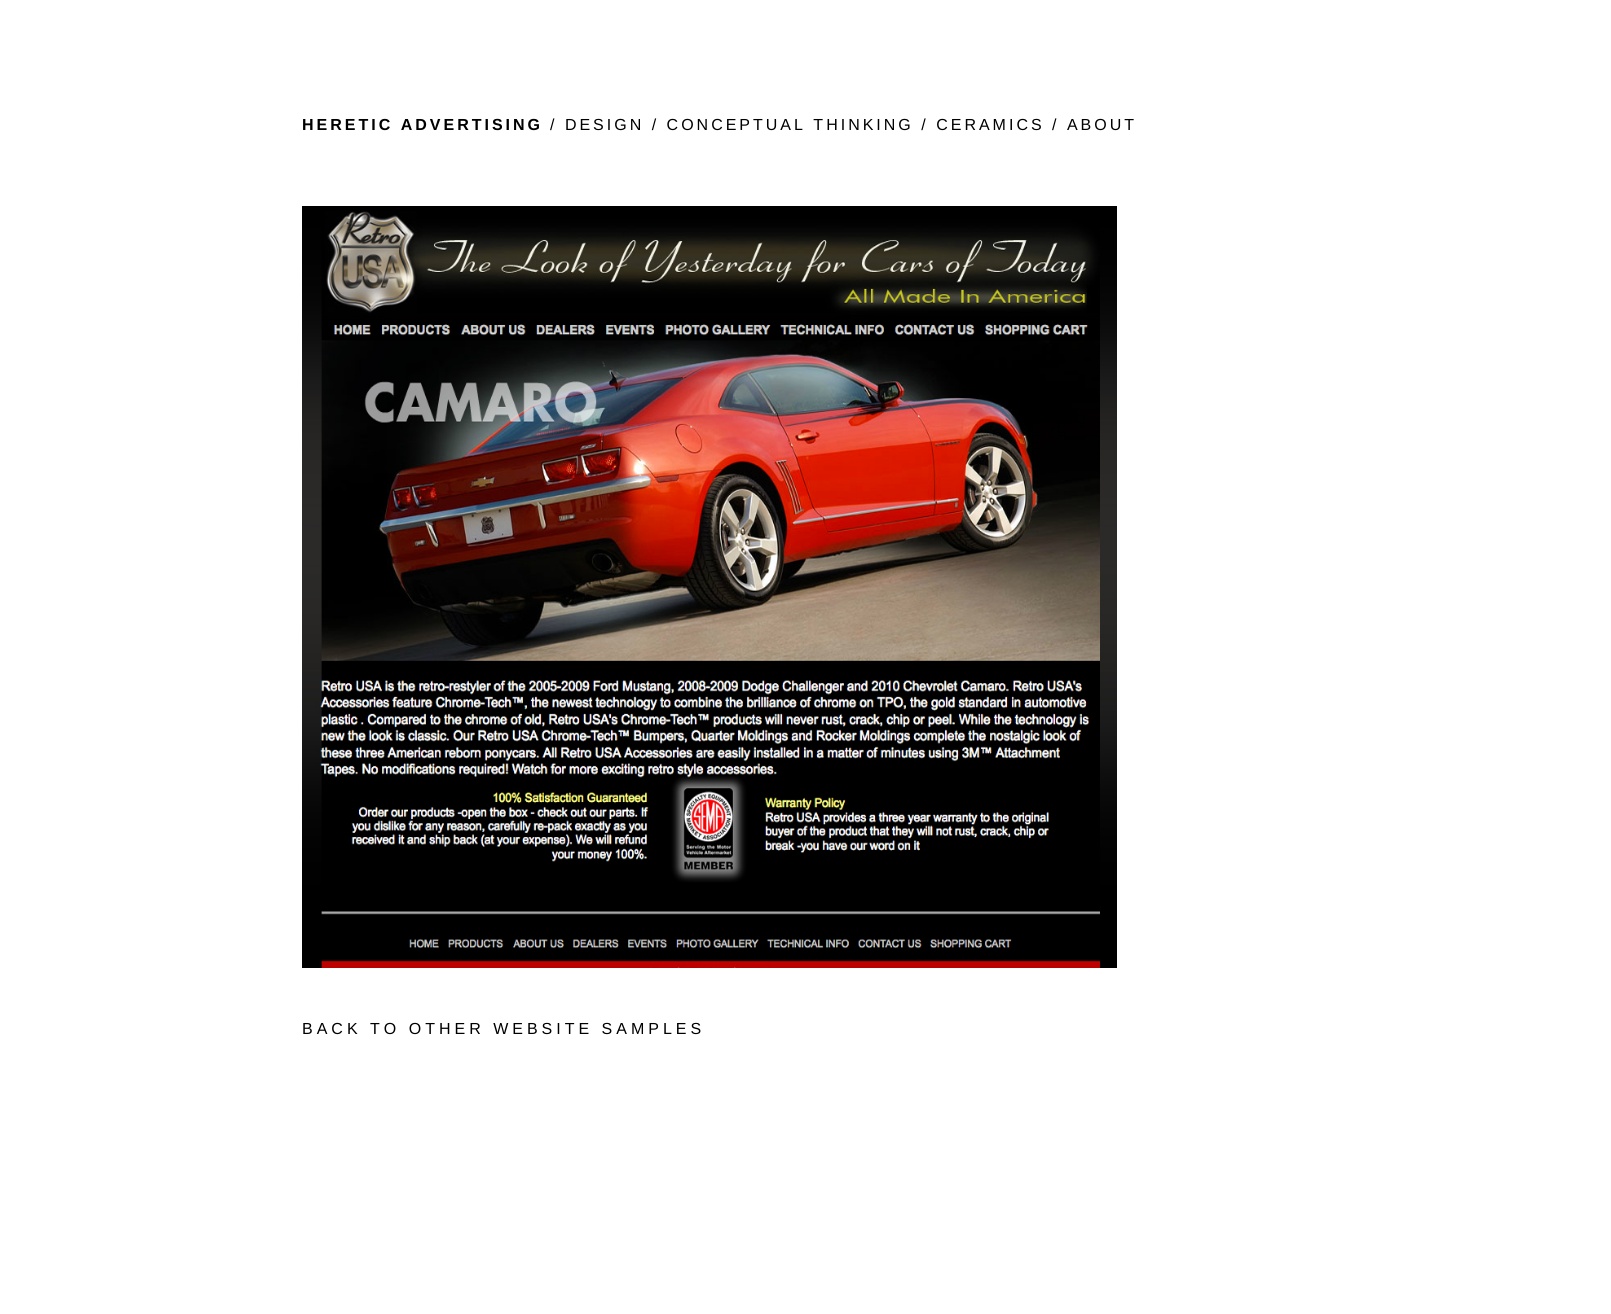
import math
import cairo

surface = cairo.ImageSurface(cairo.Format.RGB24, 1611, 1314)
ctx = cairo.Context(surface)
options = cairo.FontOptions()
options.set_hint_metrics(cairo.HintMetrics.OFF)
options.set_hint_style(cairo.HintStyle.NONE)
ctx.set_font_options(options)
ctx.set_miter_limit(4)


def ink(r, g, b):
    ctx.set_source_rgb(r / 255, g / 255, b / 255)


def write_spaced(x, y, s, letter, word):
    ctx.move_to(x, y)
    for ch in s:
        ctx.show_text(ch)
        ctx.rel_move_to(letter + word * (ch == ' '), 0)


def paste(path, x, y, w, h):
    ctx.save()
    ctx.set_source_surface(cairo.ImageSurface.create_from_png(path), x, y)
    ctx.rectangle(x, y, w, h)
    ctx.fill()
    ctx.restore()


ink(255, 255, 255)
ctx.paint()
ctx.select_font_face("Liberation Sans", cairo.FontSlant.NORMAL, cairo.FontWeight.BOLD)
ctx.set_font_size(16)
ink(0, 0, 0)
write_spaced(302, 130, "HERETIC ADVERTISING", 3, 0)
ctx.select_font_face("Liberation Sans")
write_spaced(550, 130, "/ DESIGN / CONCEPTUAL THINKING / CERAMICS / ABOUT", 3, 0)
paste("pic1.png", 302, 206, 815, 762)
write_spaced(302, 1034, "BACK TO OTHER WEBSITE SAMPLES", 4, 0)
surface.write_to_png("screenshot.png")
